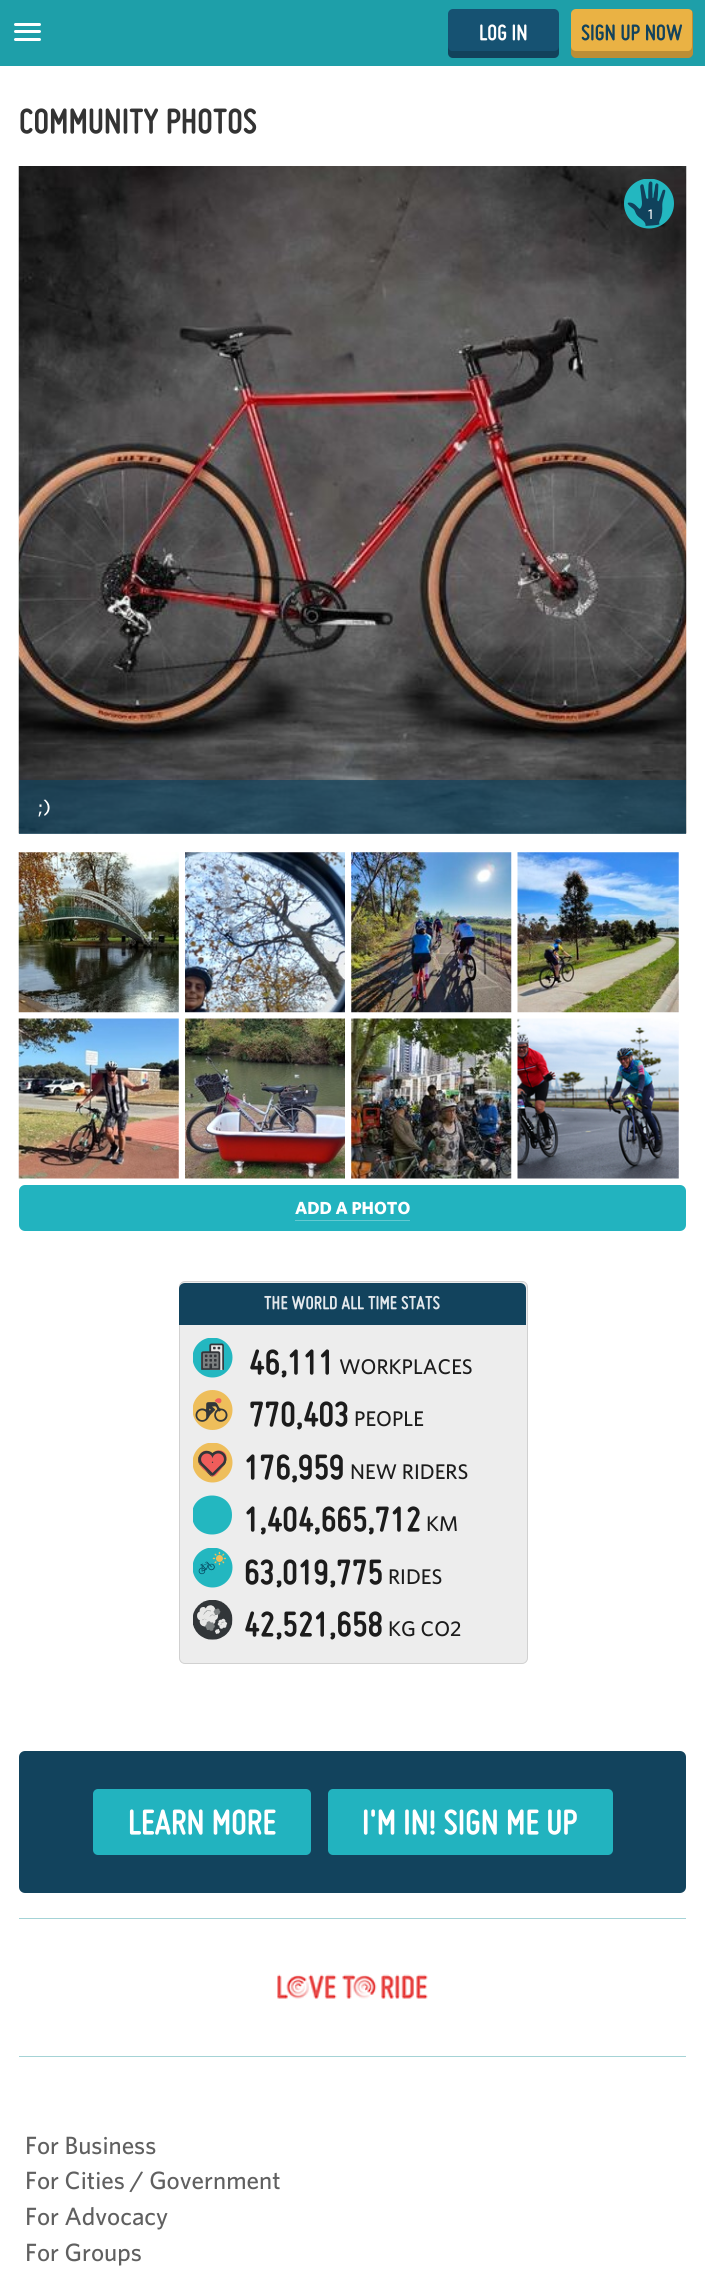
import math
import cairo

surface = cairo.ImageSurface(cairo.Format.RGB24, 705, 2269)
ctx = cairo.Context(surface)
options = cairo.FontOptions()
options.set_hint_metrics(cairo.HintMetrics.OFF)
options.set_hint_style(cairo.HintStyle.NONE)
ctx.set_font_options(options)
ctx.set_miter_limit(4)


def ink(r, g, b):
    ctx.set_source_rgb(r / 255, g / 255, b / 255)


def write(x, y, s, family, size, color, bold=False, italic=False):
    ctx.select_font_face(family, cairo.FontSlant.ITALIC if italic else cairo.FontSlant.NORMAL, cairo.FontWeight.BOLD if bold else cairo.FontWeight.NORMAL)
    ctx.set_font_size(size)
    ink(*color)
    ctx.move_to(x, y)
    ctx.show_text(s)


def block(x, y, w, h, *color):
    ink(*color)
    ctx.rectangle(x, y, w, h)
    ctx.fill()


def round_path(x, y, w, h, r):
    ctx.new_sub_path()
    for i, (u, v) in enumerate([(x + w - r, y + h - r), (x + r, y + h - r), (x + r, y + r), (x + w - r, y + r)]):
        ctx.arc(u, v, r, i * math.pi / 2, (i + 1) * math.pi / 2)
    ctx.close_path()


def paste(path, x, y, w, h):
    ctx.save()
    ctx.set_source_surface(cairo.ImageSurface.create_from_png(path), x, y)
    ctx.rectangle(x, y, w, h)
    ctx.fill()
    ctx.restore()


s1 = dict(family="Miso", size=23.75, color=(255, 255, 255), bold=True, italic=True)
s2 = dict(family="Miso", size=23.75, color=(18, 67, 93), bold=True, italic=True)
s3 = dict(family="Miso", size=37.5, color=(51, 51, 51), bold=True, italic=True)
s4 = dict(family="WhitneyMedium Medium", size=14, color=(255, 255, 255))
s5 = dict(family="WhitneyMedium Medium", size=20, color=(255, 255, 255))
s6 = dict(family="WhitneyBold", size=17.5, color=(255, 255, 255), bold=True)
s7 = dict(family="Miso", size=20, color=(227, 232, 236), bold=True, italic=True)
s8 = dict(family="Miso", size=37.5, color=(28, 28, 28), bold=True, italic=True)
s9 = dict(family="WhitneyMedium Medium", size=21.25, color=(28, 28, 28))
s10 = dict(family="Miso", size=37.5, color=(255, 255, 255), bold=True, italic=True)
s11 = dict(family="WhitneyMedium Medium", size=25, color=(96, 96, 96))

ink(255, 255, 255)
ctx.paint()
block(0, 0, 705, 66, 30, 159, 169)
ink(255, 255, 255)
round_path(14, 23, 27, 3, 1.5)
ctx.fill()
round_path(14, 30, 27, 3, 1.5)
ctx.fill()
round_path(14, 38, 27, 3, 1.5)
ctx.fill()
ink(22, 82, 114)
round_path(448, 9, 111, 49, 5)
ctx.fill()
ctx.set_source_rgba(0, 0, 0, 0.2)
ctx.new_path()
ctx.move_to(448, 46)
ctx.line_to(448, 53)
ctx.curve_to(448, 56, 450, 58, 453, 58)
ctx.line_to(554, 58)
ctx.curve_to(557, 58, 559, 56, 559, 53)
ctx.line_to(559, 46)
ctx.curve_to(559, 49, 557, 51, 554, 51)
ctx.line_to(452, 51)
ctx.curve_to(450, 51, 448, 49, 448, 46)
ctx.close_path()
ctx.fill()
write(479, 40, "LOG IN", **s1)
ink(234, 178, 68)
round_path(571, 9, 122, 49, 5)
ctx.fill()
ctx.set_source_rgba(0, 0, 0, 0.2)
ctx.new_path()
ctx.move_to(571, 46)
ctx.line_to(571, 53)
ctx.curve_to(571, 56, 573, 58, 576, 58)
ctx.line_to(688, 58)
ctx.curve_to(691, 58, 693, 56, 693, 53)
ctx.line_to(693, 14)
ctx.curve_to(693, 13, 693, 12, 692, 11)
ctx.line_to(692, 46)
ctx.curve_to(692, 49, 690, 51, 688, 51)
ctx.line_to(576, 51)
ctx.curve_to(573, 51, 571, 49, 571, 46)
ctx.close_path()
ctx.fill()
write(581, 40, "SIGN UP NOW", **s2)
write(19, 133, "COMMUNITY PHOTOS", **s3)
paste("pic1.png", 18, 166, 669, 668)
paste("pic2.png", 624, 179, 50, 50)
write(648, 219, "1", **s4)
ctx.set_source_rgba(0.071, 0.263, 0.365, 0.7)
ctx.rectangle(19, 780, 667, 54)
ctx.fill()
write(38, 814, ";)", **s5)
paste("pic3.png", 18, 852, 161, 161)
paste("pic4.png", 185, 852, 160, 161)
paste("pic5.png", 351, 852, 161, 161)
paste("pic6.png", 517, 852, 162, 161)
paste("pic7.png", 18, 1018, 161, 161)
paste("pic8.png", 185, 1018, 160, 161)
paste("pic9.png", 351, 1018, 161, 161)
paste("pic10.png", 517, 1018, 162, 161)
ink(34, 179, 191)
round_path(19, 1185, 667, 46, 6)
ctx.fill()
block(295, 1220, 115, 1, 100, 202, 210)
write(295, 1214, "ADD A PHOTO", **s6)
ink(237, 237, 237)
round_path(179.5, 1281.5, 348, 382, 5.5)
ctx.fill_preserve()
ink(209, 209, 209)
ctx.set_line_width(1)
ctx.stroke()
ink(18, 67, 93)
ctx.new_path()
ctx.move_to(185, 1283)
ctx.line_to(520, 1283)
ctx.curve_to(523.5, 1283, 526, 1285.5, 526, 1289)
ctx.line_to(526, 1325)
ctx.line_to(179, 1325)
ctx.line_to(179, 1289)
ctx.curve_to(179, 1285.5, 181.5, 1283, 185, 1283)
ctx.close_path()
ctx.fill()
write(264, 1309, "THE WORLD ALL TIME STATS", **s7)
paste("pic11.png", 193, 1338, 40, 40)
write(249, 1374, "46,111", **s8)
write(339, 1374, "WORKPLACES", **s9)
paste("pic12.png", 193, 1390, 40, 40)
write(249, 1426, "770,403", **s8)
write(354, 1426, "PEOPLE", **s9)
paste("pic13.png", 193, 1443, 40, 40)
write(244, 1479, "176,959", **s8)
write(350, 1479, "NEW RIDERS", **s9)
ctx.save()
ctx.rectangle(193, 1495, 40, 40)
ctx.clip()
ink(35, 183, 192)
ctx.new_path()
ctx.move_to(232, 1515)
ctx.curve_to(232, 1541, 192, 1541, 192, 1515)
ctx.curve_to(192, 1489, 232, 1489, 232, 1515)
ctx.close_path()
ctx.fill()
ctx.restore()
write(244, 1531, "1,404,665,712", **s8)
write(426, 1531, "KM", **s9)
paste("pic14.png", 193, 1548, 40, 40)
write(244, 1584, "63,019,775", **s8)
write(388, 1584, "RIDES", **s9)
paste("pic15.png", 193, 1600, 40, 40)
write(244, 1636, "42,521,658", **s8)
write(388, 1636, "KG CO2", **s9)
ink(18, 67, 93)
round_path(19, 1751, 667, 142, 6)
ctx.fill()
ink(34, 179, 191)
round_path(93, 1789, 218, 66, 5)
ctx.fill()
write(128, 1834, "LEARN MORE", **s10)
ink(34, 179, 191)
round_path(328, 1789, 285, 66, 5)
ctx.fill()
write(362, 1834, "I'M IN! SIGN ME UP", **s10)
block(19, 1918, 667, 1, 164, 211, 214)
block(19, 2056, 667, 1, 164, 211, 214)
paste("pic16.png", 277, 1974, 151, 25)
write(25, 2154, "For Business", **s11)
write(25, 2189, "For Cities / Government", **s11)
write(25, 2225, "For Advocacy", **s11)
write(25, 2261, "For Groups", **s11)
surface.write_to_png("screenshot.png")
